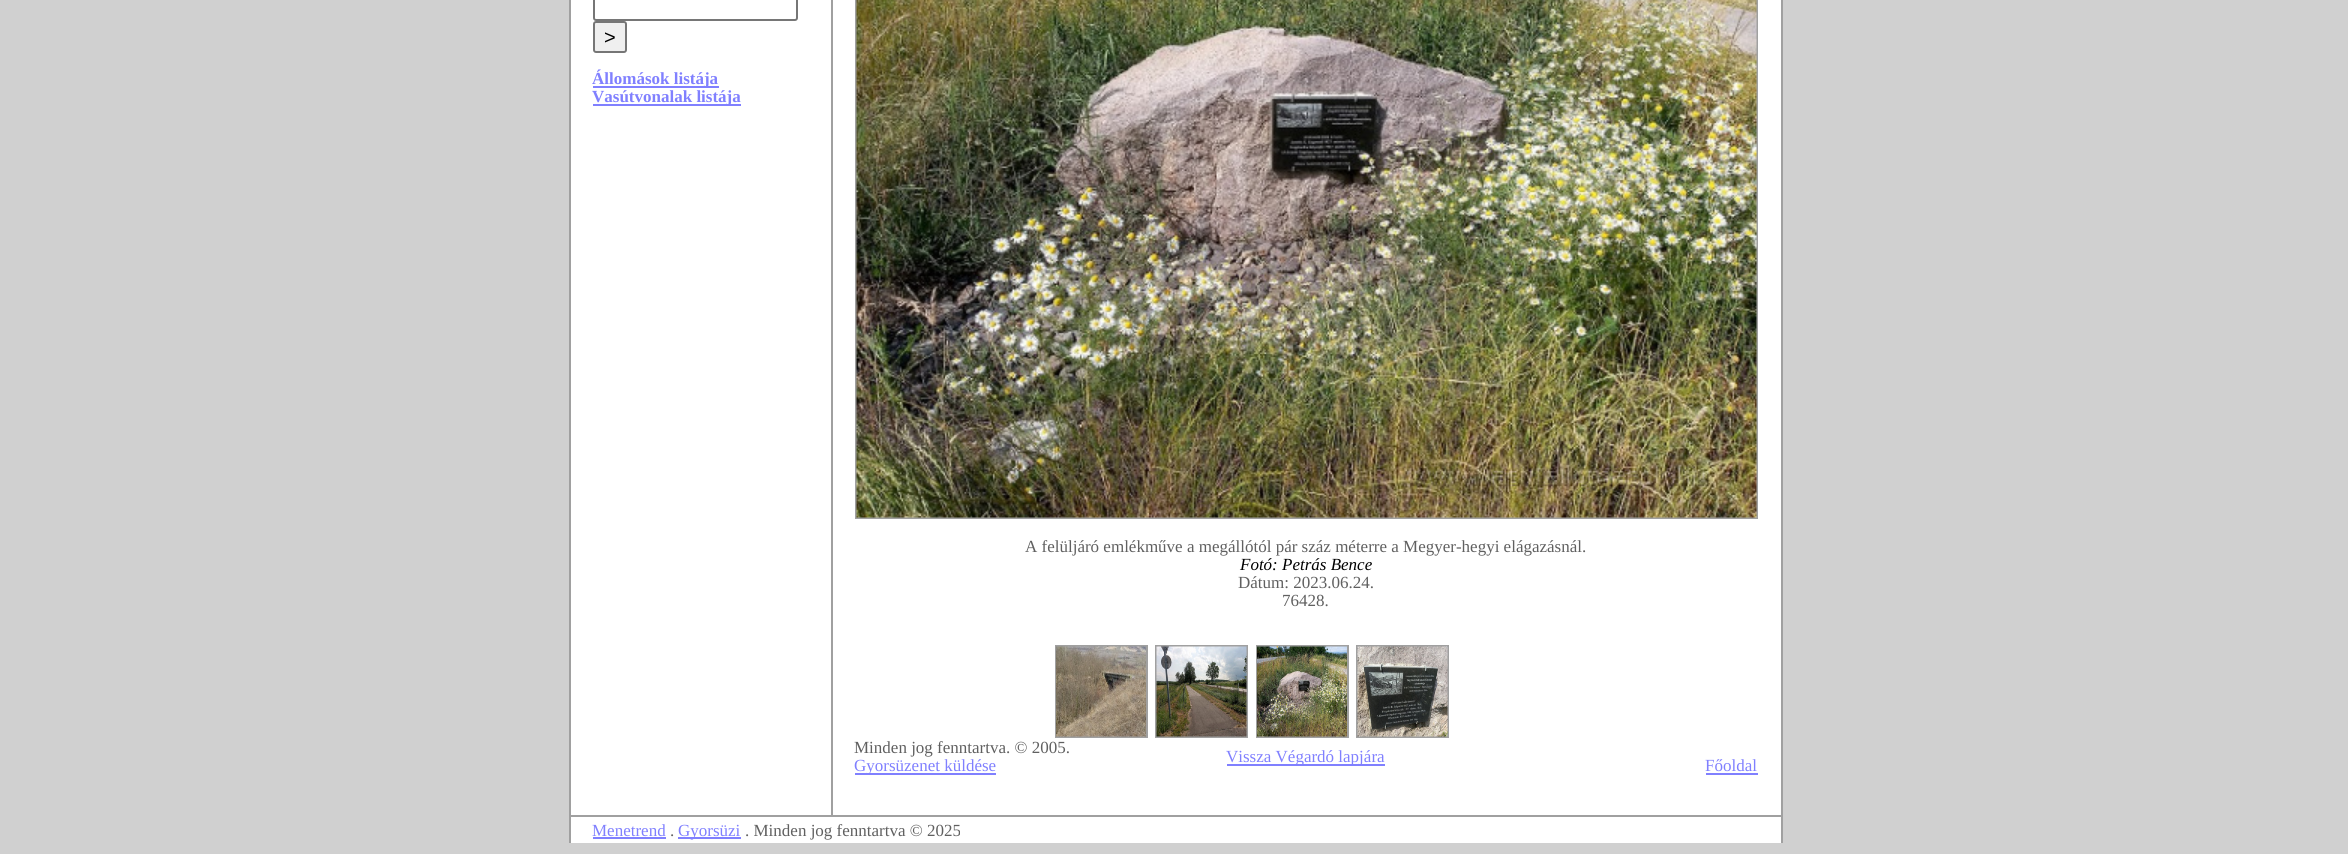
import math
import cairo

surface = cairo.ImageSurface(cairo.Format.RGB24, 2348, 854)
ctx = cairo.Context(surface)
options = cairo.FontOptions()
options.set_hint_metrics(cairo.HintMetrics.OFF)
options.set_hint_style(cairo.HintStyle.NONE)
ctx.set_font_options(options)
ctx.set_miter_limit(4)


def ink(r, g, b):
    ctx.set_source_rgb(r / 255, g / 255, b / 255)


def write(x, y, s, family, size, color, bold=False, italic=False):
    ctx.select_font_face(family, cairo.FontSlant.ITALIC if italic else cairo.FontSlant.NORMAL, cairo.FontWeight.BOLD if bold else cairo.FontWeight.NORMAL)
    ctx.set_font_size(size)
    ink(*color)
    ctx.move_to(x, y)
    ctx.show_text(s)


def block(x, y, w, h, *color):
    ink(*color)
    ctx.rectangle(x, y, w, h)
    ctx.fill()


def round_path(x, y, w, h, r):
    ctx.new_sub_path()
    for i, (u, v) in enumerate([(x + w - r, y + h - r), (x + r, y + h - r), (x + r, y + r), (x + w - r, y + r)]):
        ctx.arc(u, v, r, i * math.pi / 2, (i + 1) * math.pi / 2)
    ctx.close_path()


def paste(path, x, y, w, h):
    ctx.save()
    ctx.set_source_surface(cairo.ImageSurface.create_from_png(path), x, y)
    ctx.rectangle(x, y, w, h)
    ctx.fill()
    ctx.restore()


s1 = dict(family="Liberation Sans", size=20, color=(0, 0, 0))
s2 = dict(family="Liberation Serif", size=17, color=(128, 128, 255), bold=True)
s3 = dict(family="Liberation Serif", size=17, color=(96, 96, 96))
s4 = dict(family="Liberation Serif", size=17, color=(0, 0, 0), italic=True)
s5 = dict(family="Liberation Serif", size=17, color=(128, 128, 255))

ink(208, 208, 208)
ctx.paint()
block(571, 0, 1210, 843, 255, 255, 255)
block(569, 0, 2, 815, 160, 160, 160)
round_path(594, -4, 203, 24, 2)
ink(118, 118, 118)
ctx.stroke()
ink(239, 239, 239)
round_path(594, 22, 32, 30, 2)
ctx.fill_preserve()
ink(118, 118, 118)
ctx.stroke()
write(604, 44, ">", **s1)
block(593, 86, 126, 2, 128, 128, 255)
write(592, 84, "Állomások listája", **s2)
block(593, 104, 148, 2, 128, 128, 255)
write(592, 102, "Vasútvonalak listája", **s2)
block(1781, 0, 2, 815, 160, 160, 160)
block(831, 0, 2, 815, 160, 160, 160)
ctx.rectangle(856, -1, 901, 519)
ctx.stroke()
paste("pic1.png", 856, 0, 901, 518)
write(1025, 552, "A felüljáró emlékműve a megállótól pár száz méterre a Megyer-hegyi elágazásnál.", **s3)
write(1240, 570, "Fotó: Petrás Bence", **s4)
write(1238, 588, "Dátum: 2023.06.24.", **s3)
write(1282, 606, "76428.", **s3)
ctx.rectangle(1056, 646, 91, 91)
ink(160, 160, 160)
ctx.stroke()
paste("pic2.png", 1056, 646, 90, 91)
ctx.rectangle(1156, 646, 91, 91)
ctx.stroke()
paste("pic3.png", 1156, 646, 91, 91)
ctx.rectangle(1257, 646, 91, 91)
ctx.stroke()
paste("pic4.png", 1257, 646, 90, 91)
ctx.rectangle(1357, 646, 91, 91)
ctx.stroke()
paste("pic5.png", 1357, 646, 91, 91)
write(854, 753, "Minden jog fenntartva. © 2005.", **s3)
block(855, 773, 141, 2, 128, 128, 255)
write(854, 771, "Gyorsüzenet küldése", **s5)
block(1227, 764, 158, 2, 128, 128, 255)
write(1226, 762, "Vissza Végardó lapjára", **s5)
write(1705, 771, "Főoldal", **s5)
block(1706, 773, 52, 2, 128, 128, 255)
block(569, 815, 1213, 2, 160, 160, 160)
block(1781, 815, 2, 28, 160, 160, 160)
block(569, 815, 2, 28, 160, 160, 160)
write(592, 836, "Menetrend", **s5)
block(593, 837, 73, 2, 128, 128, 255)
write(670, 836, ".", **s3)
block(678, 837, 63, 2, 128, 128, 255)
write(678, 836, "Gyorsüzi", **s5)
write(745, 836, ". Minden jog fenntartva © 2025", **s3)
surface.write_to_png("screenshot.png")
